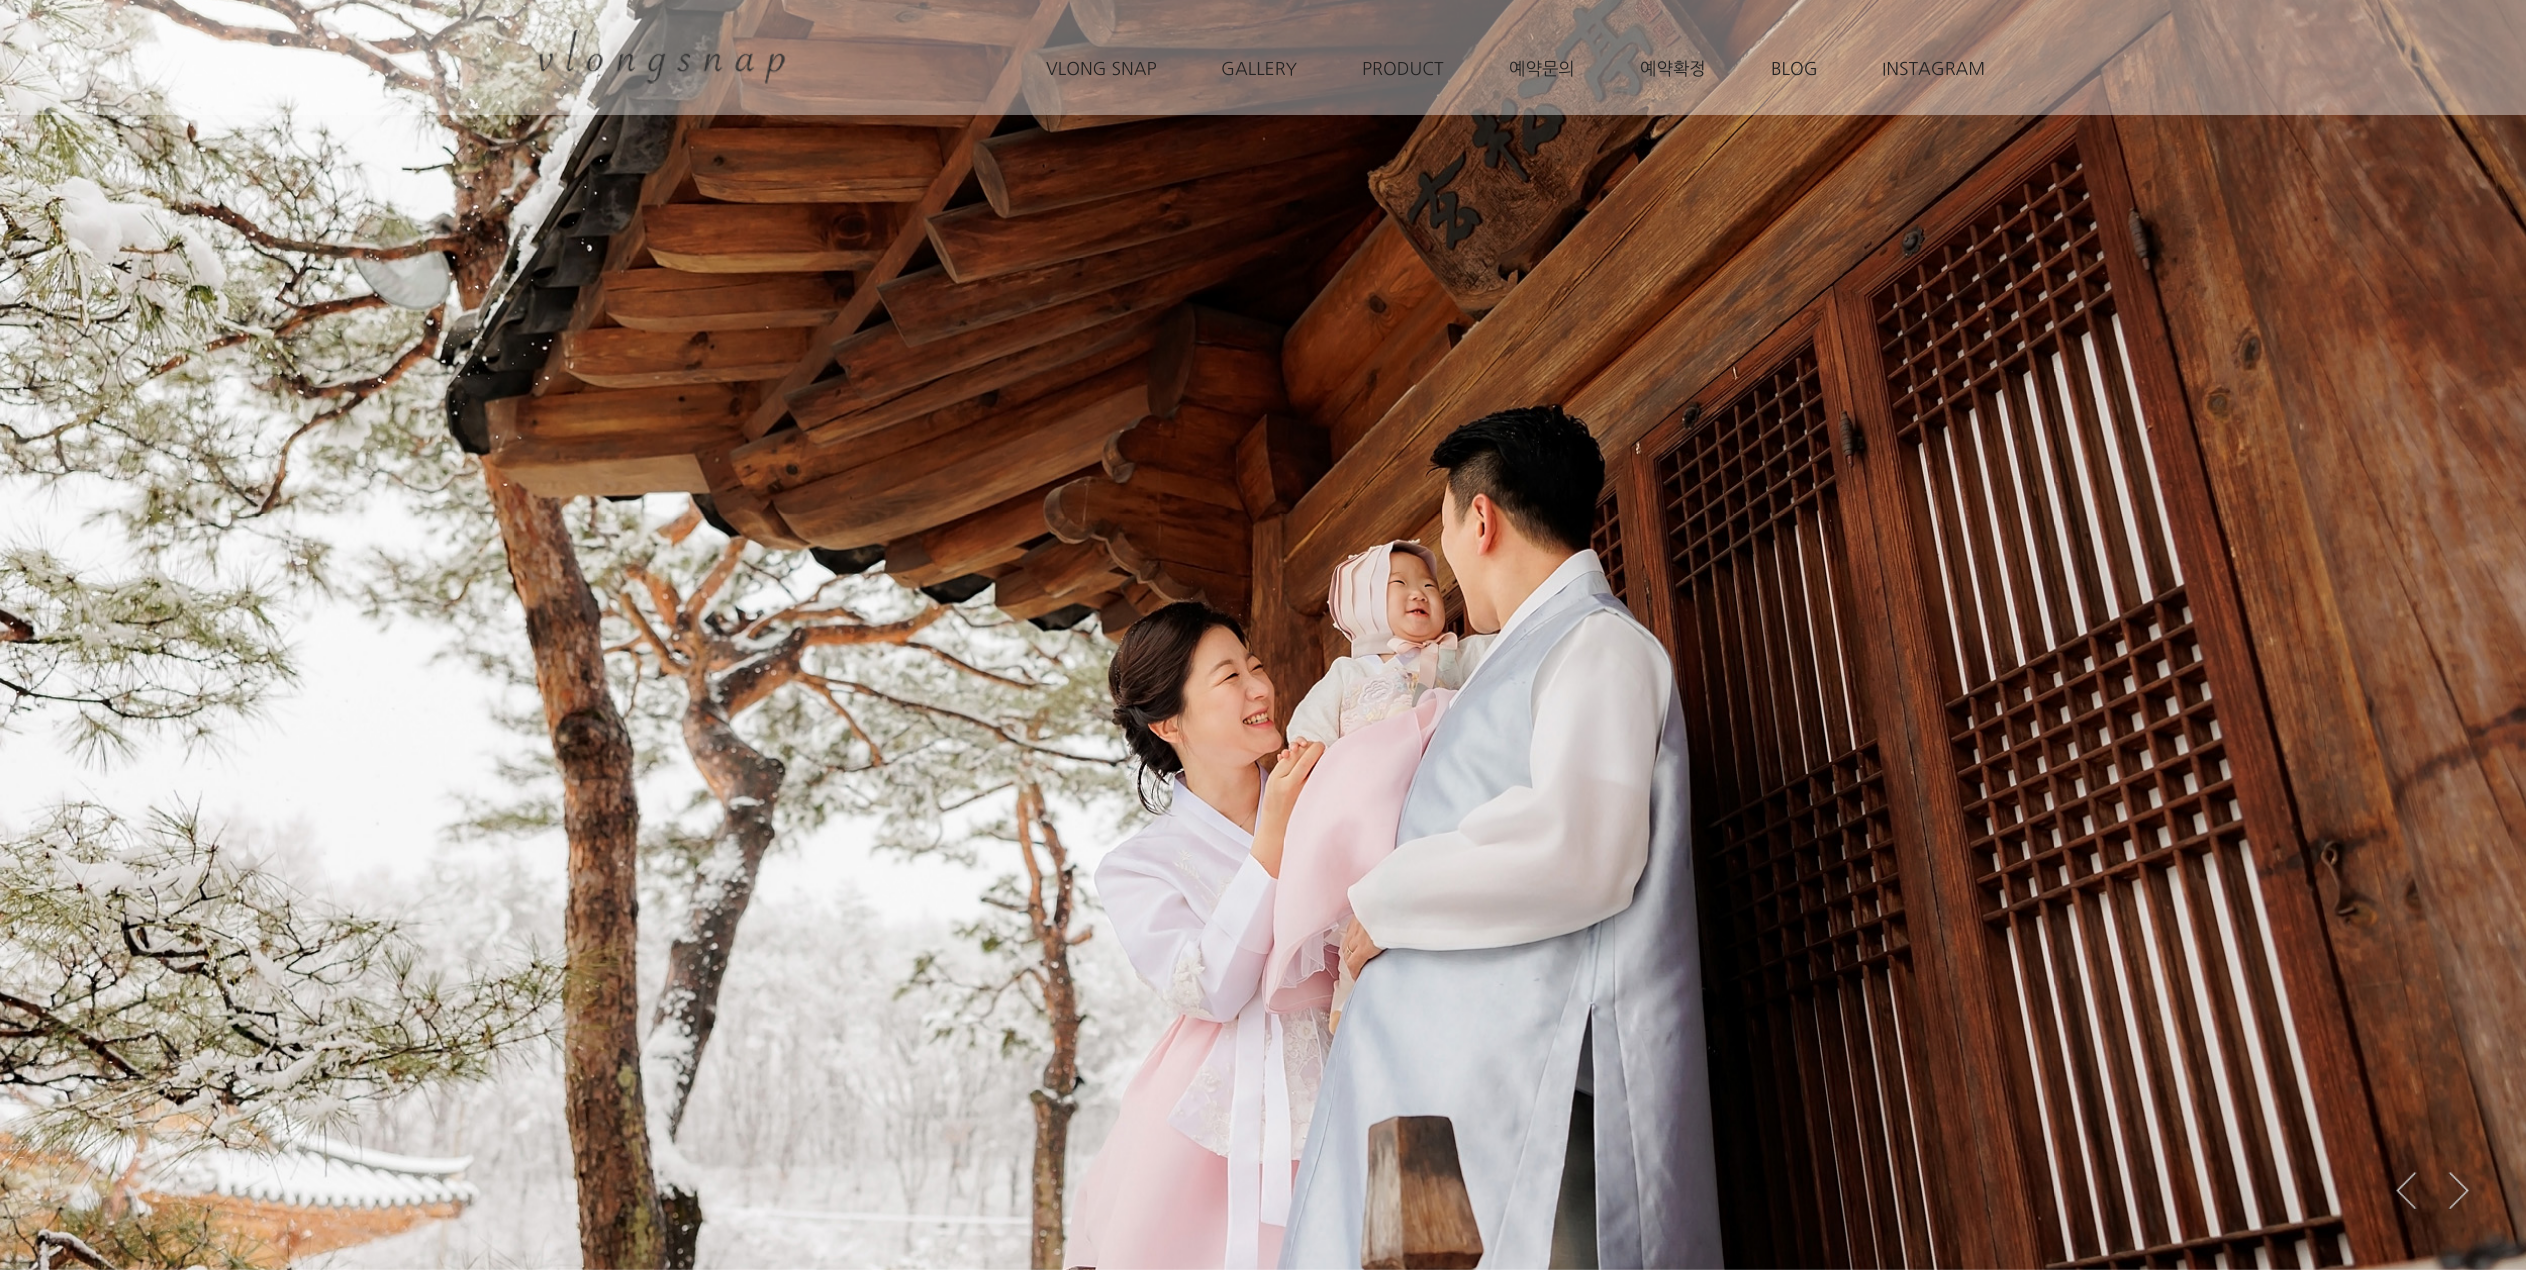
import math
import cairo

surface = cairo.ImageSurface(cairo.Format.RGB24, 2526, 1270)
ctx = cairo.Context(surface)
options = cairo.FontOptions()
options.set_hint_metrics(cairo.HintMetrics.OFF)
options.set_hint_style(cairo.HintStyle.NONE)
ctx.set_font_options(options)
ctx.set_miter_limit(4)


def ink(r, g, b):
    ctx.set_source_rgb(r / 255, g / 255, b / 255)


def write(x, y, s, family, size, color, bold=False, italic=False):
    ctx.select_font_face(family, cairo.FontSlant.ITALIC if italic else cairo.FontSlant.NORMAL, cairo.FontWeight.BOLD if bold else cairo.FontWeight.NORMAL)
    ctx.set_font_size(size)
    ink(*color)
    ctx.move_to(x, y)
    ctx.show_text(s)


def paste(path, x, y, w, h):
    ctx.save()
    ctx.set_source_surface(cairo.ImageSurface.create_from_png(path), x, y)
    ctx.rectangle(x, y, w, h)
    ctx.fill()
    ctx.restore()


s1 = dict(family="NanumGothic", size=17.5, color=(34, 34, 34))

ink(255, 255, 255)
ctx.paint()
paste("pic2.png", 0, 0, 2526, 1270)
ctx.set_source_rgba(1, 1, 1, 0.4)
ctx.rectangle(0, 0, 2526, 115)
ctx.fill()
paste("pic1.png", 15, 15, 9, 9)
paste("pic3.png", 538, 28, 248, 56)
write(1046, 75, "VLONG SNAP", **s1)
write(1221, 75, "GALLERY", **s1)
write(1362, 75, "PRODUCT", **s1)
write(1509, 75, "예약문의", **s1)
write(1640, 75, "예약확정", **s1)
write(1771, 75, "BLOG", **s1)
write(1882, 75, "INSTAGRAM", **s1)
paste("pic4.png", 2396, 1172, 21, 38)
paste("pic5.png", 2448, 1172, 21, 38)
surface.write_to_png("screenshot.png")
